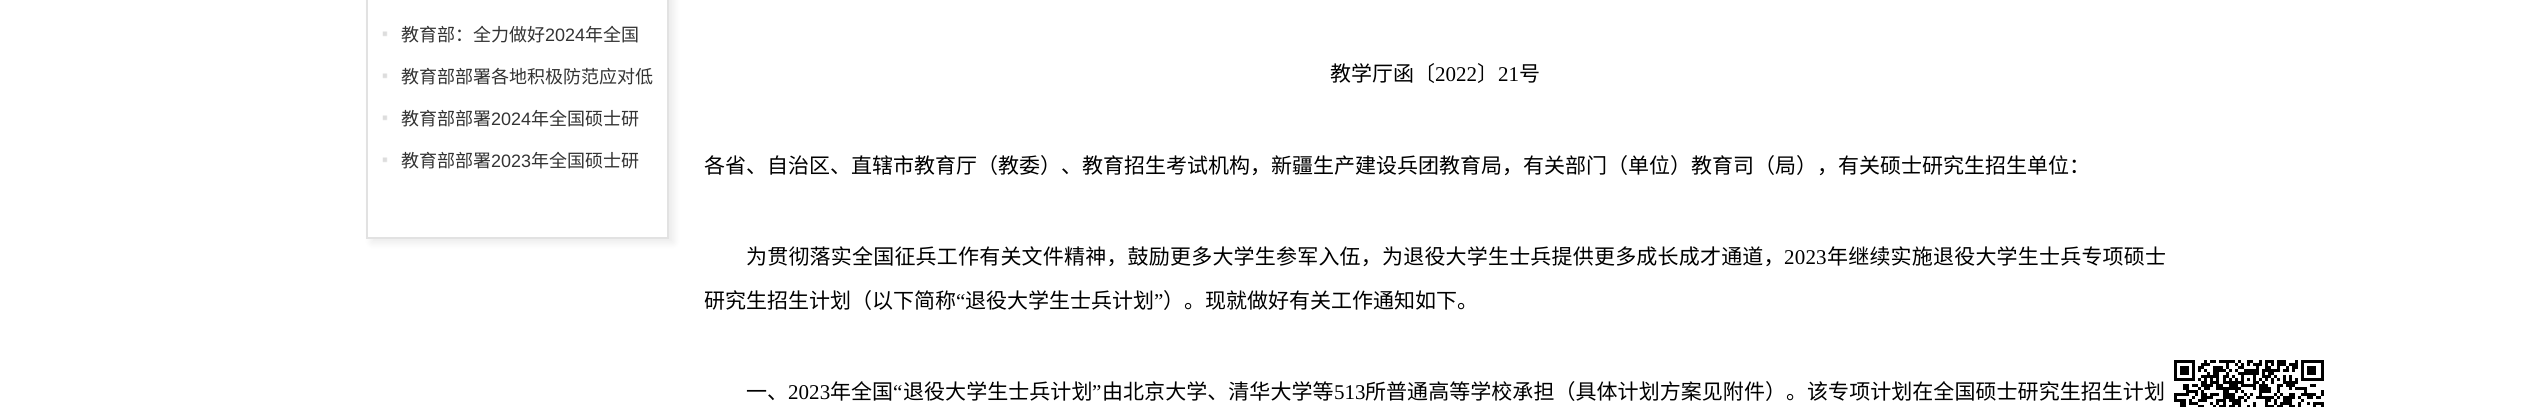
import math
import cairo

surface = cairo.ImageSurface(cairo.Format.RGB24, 2532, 407)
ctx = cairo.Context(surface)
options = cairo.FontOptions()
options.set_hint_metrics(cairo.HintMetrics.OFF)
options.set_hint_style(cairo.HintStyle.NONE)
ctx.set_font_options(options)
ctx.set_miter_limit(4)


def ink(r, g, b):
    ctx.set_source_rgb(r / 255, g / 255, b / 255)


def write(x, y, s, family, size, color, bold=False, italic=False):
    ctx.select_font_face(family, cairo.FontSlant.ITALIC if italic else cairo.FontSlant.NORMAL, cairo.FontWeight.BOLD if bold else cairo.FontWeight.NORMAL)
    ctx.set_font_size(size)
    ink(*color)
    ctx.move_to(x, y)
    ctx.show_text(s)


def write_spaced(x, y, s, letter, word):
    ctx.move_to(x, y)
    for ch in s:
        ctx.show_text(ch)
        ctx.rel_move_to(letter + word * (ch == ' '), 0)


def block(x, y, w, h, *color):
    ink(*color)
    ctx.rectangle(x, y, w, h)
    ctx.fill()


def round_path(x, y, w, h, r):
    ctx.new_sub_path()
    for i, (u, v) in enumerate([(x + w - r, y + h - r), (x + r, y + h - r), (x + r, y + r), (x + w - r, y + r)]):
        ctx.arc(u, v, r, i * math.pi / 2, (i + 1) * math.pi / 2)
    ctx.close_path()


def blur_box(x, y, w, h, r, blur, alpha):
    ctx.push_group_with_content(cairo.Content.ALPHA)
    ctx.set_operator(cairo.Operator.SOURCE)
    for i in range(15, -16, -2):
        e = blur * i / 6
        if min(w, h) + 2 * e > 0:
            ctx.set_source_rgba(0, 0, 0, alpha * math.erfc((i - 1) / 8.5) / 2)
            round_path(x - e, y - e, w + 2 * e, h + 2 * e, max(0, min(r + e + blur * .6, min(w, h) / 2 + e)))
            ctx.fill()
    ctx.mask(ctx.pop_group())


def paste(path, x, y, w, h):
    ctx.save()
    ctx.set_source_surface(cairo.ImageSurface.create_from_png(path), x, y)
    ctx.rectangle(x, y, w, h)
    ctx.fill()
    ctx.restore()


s1 = dict(family="Noto Sans CJK SC", size=18, color=(51, 51, 51))
s2 = dict(family="Liberation Sans", size=18, color=(51, 51, 51))
s3 = dict(family="Noto Sans CJK SC", size=21, color=(0, 0, 0))
s4 = dict(family="Liberation Serif", size=21, color=(0, 0, 0))

ink(255, 255, 255)
ctx.paint()
ctx.save()
ctx.set_fill_rule(cairo.FillRule.EVEN_ODD)
ctx.new_path()
ctx.move_to(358, 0)
ctx.line_to(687, 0)
ctx.line_to(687, 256)
ctx.line_to(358, 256)
ctx.close_path()
ctx.move_to(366, -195)
ctx.line_to(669, -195)
ctx.line_to(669, 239)
ctx.line_to(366, 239)
ctx.close_path()
ctx.clip()
ink(0, 0, 0)
blur_box(371, -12, 303, 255, 0, 4, 0.08)
ctx.restore()
ctx.rectangle(367, -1, 301, 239)
ink(226, 226, 226)
ctx.stroke()
paste("pic1.png", 382, 31, 6, 6)
write(401, 41, "教育部：全力做好", **s1)
write(545, 41, "2024", **s2)
write(585, 41, "年全国", **s1)
paste("pic1.png", 382, 73, 6, 6)
write(401, 83, "教育部部署各地积极防范应对低", **s1)
paste("pic1.png", 382, 115, 6, 6)
write(401, 125, "教育部部署", **s1)
write(491, 125, "2024", **s2)
write(531, 125, "年全国硕士研", **s1)
paste("pic1.png", 382, 157, 6, 6)
write(401, 167, "教育部部署", **s1)
write(491, 167, "2023", **s2)
write(531, 167, "年全国硕士研", **s1)
write(1330, 81, "教学厅函〔", **s3)
write(1435, 81, "2022", **s4)
write(1477, 81, "〕", **s3)
write(1498, 81, "21", **s4)
write(1519, 81, "号", **s3)
write(704, 173, "各省、自治区、直辖市教育厅（教委）、教育招生考试机构，新疆生产建设兵团教育局，有关部门（单位）教育司（局），有关硕士研究生招生单位：", **s3)
write_spaced(746, 264, "为贯彻落实全国征兵工作有关文件精神，鼓励更多大学生参军入伍，为退役大学生士兵提供更多成长成才通道，", 0.2, 0)
ctx.select_font_face("Liberation Serif")
write_spaced(1784, 264, "2023", 0.2, 0)
ctx.select_font_face("Noto Sans CJK SC")
write_spaced(1827, 264, "年继续实施退役大学生士兵专项硕士", 0.2, 0)
write(704, 308, "研究生招生计划（以下简称", **s3)
write(956, 308, "“", **s4)
write(965, 308, "退役大学生士兵计划", **s3)
write(1154, 308, "”", **s4)
write(1163, 308, "）。现就做好有关工作通知如下。", **s3)
write_spaced(746, 399, "一、", 0.05, 0)
ctx.select_font_face("Liberation Serif")
write_spaced(788, 399, "2023", 0.05, 0)
ctx.select_font_face("Noto Sans CJK SC")
write_spaced(830, 399, "年全国", 0.05, 0)
ctx.select_font_face("Liberation Serif")
write_spaced(893, 399, "“", 0.05, 0)
ctx.select_font_face("Noto Sans CJK SC")
write_spaced(903, 399, "退役大学生士兵计划", 0.05, 0)
ctx.select_font_face("Liberation Serif")
write_spaced(1092, 399, "”", 0.05, 0)
ctx.select_font_face("Noto Sans CJK SC")
write_spaced(1102, 399, "由北京大学、清华大学等", 0.05, 0)
ctx.select_font_face("Liberation Serif")
write_spaced(1334, 399, "513", 0.05, 0)
ctx.select_font_face("Noto Sans CJK SC")
write_spaced(1365, 399, "所普通高等学校承担（具体计划方案见附件）。该专项计划在全国硕士研究生招生计划", 0.05, 0)
block(2174, 360, 21, 3, 0, 0, 0)
block(2204, 360, 3, 3, 0, 0, 0)
block(2210, 360, 6, 3, 0, 0, 0)
block(2219, 360, 16, 3, 0, 0, 0)
block(2238, 360, 3, 3, 0, 0, 0)
block(2247, 360, 6, 3, 0, 0, 0)
block(2259, 360, 3, 3, 0, 0, 0)
block(2265, 360, 9, 3, 0, 0, 0)
block(2277, 360, 9, 3, 0, 0, 0)
block(2295, 360, 3, 3, 0, 0, 0)
block(2301, 360, 23, 3, 0, 0, 0)
block(2174, 363, 3, 18, 0, 0, 0)
block(2192, 363, 3, 15, 0, 0, 0)
block(2201, 363, 9, 3, 0, 0, 0)
block(2226, 363, 3, 6, 0, 0, 0)
block(2235, 363, 3, 3, 0, 0, 0)
block(2241, 363, 3, 3, 0, 0, 0)
block(2247, 363, 3, 3, 0, 0, 0)
block(2253, 363, 9, 3, 0, 0, 0)
block(2265, 363, 3, 6, 0, 0, 0)
block(2271, 363, 3, 3, 0, 0, 0)
block(2277, 363, 9, 3, 0, 0, 0)
block(2289, 363, 9, 3, 0, 0, 0)
block(2301, 363, 3, 18, 0, 0, 0)
block(2321, 363, 3, 15, 0, 0, 0)
block(2180, 366, 9, 3, 0, 0, 0)
block(2198, 366, 6, 3, 0, 0, 0)
block(2213, 366, 11, 3, 0, 0, 0)
block(2223, 366, 3, 3, 255, 255, 255)
block(2238, 366, 6, 3, 0, 0, 0)
block(2256, 366, 3, 3, 0, 0, 0)
block(2268, 366, 3, 3, 0, 0, 0)
block(2277, 366, 3, 3, 0, 0, 0)
block(2286, 366, 3, 3, 0, 0, 0)
block(2292, 366, 6, 3, 0, 0, 0)
block(2307, 366, 9, 3, 0, 0, 0)
block(2180, 369, 9, 3, 0, 0, 0)
block(2198, 369, 3, 3, 0, 0, 0)
block(2204, 369, 3, 3, 0, 0, 0)
block(2213, 369, 13, 3, 0, 0, 0)
block(2229, 369, 3, 3, 0, 0, 0)
block(2235, 369, 3, 3, 0, 0, 0)
block(2244, 369, 15, 3, 0, 0, 0)
block(2262, 369, 18, 3, 0, 0, 0)
block(2283, 369, 6, 3, 0, 0, 0)
block(2292, 369, 3, 3, 0, 0, 0)
block(2307, 369, 9, 3, 0, 0, 0)
block(2180, 372, 9, 3, 0, 0, 0)
block(2207, 372, 3, 3, 0, 0, 0)
block(2213, 372, 6, 3, 0, 0, 0)
block(2226, 372, 3, 3, 0, 0, 0)
block(2238, 372, 21, 3, 0, 0, 0)
block(2262, 372, 3, 6, 0, 0, 0)
block(2268, 372, 6, 3, 0, 0, 0)
block(2307, 372, 9, 3, 0, 0, 0)
block(2201, 375, 18, 3, 0, 0, 0)
block(2223, 375, 6, 3, 0, 0, 0)
block(2232, 375, 3, 3, 0, 0, 0)
block(2241, 375, 3, 6, 0, 0, 0)
block(2253, 375, 3, 9, 0, 0, 0)
block(2265, 375, 6, 3, 0, 0, 0)
block(2274, 375, 3, 3, 0, 0, 0)
block(2283, 375, 3, 9, 0, 0, 0)
block(2289, 375, 3, 6, 0, 0, 0)
block(2177, 378, 18, 3, 0, 0, 0)
block(2198, 378, 3, 3, 0, 0, 0)
block(2204, 378, 3, 3, 0, 0, 0)
block(2210, 378, 3, 6, 0, 0, 0)
block(2216, 378, 3, 3, 0, 0, 0)
block(2223, 378, 3, 6, 0, 0, 0)
block(2229, 378, 3, 3, 0, 0, 0)
block(2235, 378, 3, 3, 0, 0, 0)
block(2247, 378, 3, 3, 0, 0, 0)
block(2259, 378, 3, 3, 0, 0, 0)
block(2265, 378, 3, 3, 0, 0, 0)
block(2271, 378, 3, 6, 0, 0, 0)
block(2277, 378, 3, 3, 0, 0, 0)
block(2295, 378, 3, 3, 0, 0, 0)
block(2304, 378, 20, 3, 0, 0, 0)
block(2201, 381, 6, 3, 0, 0, 0)
block(2213, 381, 6, 3, 0, 0, 0)
block(2226, 381, 18, 3, 0, 0, 0)
block(2256, 381, 3, 3, 0, 0, 0)
block(2262, 381, 3, 3, 0, 0, 0)
block(2286, 381, 12, 3, 0, 0, 0)
block(2183, 384, 6, 3, 0, 0, 0)
block(2192, 384, 6, 3, 0, 0, 0)
block(2201, 384, 12, 3, 0, 0, 0)
block(2216, 384, 8, 3, 0, 0, 0)
block(2223, 384, 3, 3, 255, 255, 255)
block(2229, 384, 9, 3, 0, 0, 0)
block(2241, 384, 15, 3, 0, 0, 0)
block(2259, 384, 9, 3, 0, 0, 0)
block(2277, 384, 6, 3, 0, 0, 0)
block(2286, 384, 9, 3, 0, 0, 0)
block(2310, 384, 6, 3, 0, 0, 0)
block(2183, 387, 6, 3, 0, 0, 0)
block(2198, 387, 3, 3, 0, 0, 0)
block(2204, 387, 6, 3, 0, 0, 0)
block(2216, 387, 25, 3, 0, 0, 0)
block(2253, 387, 3, 3, 0, 0, 0)
block(2259, 387, 12, 3, 0, 0, 0)
block(2277, 387, 3, 6, 0, 0, 0)
block(2289, 387, 3, 3, 0, 0, 0)
block(2295, 387, 12, 3, 0, 0, 0)
block(2186, 390, 12, 3, 0, 0, 0)
block(2201, 390, 3, 9, 0, 0, 0)
block(2223, 390, 6, 3, 0, 0, 0)
block(2235, 390, 3, 3, 0, 0, 0)
block(2241, 390, 3, 3, 0, 0, 0)
block(2259, 390, 12, 3, 0, 0, 0)
block(2304, 390, 3, 3, 0, 0, 0)
block(2321, 390, 3, 6, 0, 0, 0)
block(2174, 393, 15, 3, 0, 0, 0)
block(2195, 393, 3, 3, 0, 0, 0)
block(2204, 393, 3, 6, 0, 0, 0)
block(2210, 393, 9, 3, 0, 0, 0)
block(2223, 393, 12, 3, 0, 0, 0)
block(2244, 393, 3, 3, 0, 0, 0)
block(2250, 393, 3, 3, 0, 0, 0)
block(2259, 393, 3, 3, 0, 0, 0)
block(2274, 393, 3, 3, 0, 0, 0)
block(2280, 393, 3, 3, 0, 0, 0)
block(2289, 393, 6, 3, 0, 0, 0)
block(2301, 393, 15, 3, 0, 0, 0)
block(2174, 396, 3, 6, 0, 0, 0)
block(2192, 396, 3, 3, 0, 0, 0)
block(2207, 396, 6, 3, 0, 0, 0)
block(2223, 396, 12, 3, 0, 0, 0)
block(2238, 396, 6, 3, 0, 0, 0)
block(2247, 396, 3, 3, 0, 0, 0)
block(2256, 396, 18, 3, 0, 0, 0)
block(2277, 396, 3, 3, 0, 0, 0)
block(2283, 396, 12, 3, 0, 0, 0)
block(2298, 396, 3, 3, 0, 0, 0)
block(2307, 396, 6, 3, 0, 0, 0)
block(2316, 396, 5, 3, 0, 0, 0)
block(2177, 399, 9, 3, 0, 0, 0)
block(2189, 399, 3, 6, 0, 0, 0)
block(2198, 399, 9, 3, 0, 0, 0)
block(2216, 399, 10, 3, 0, 0, 0)
block(2229, 399, 12, 3, 0, 0, 0)
block(2244, 399, 3, 3, 0, 0, 0)
block(2265, 399, 6, 3, 0, 0, 0)
block(2274, 399, 3, 6, 0, 0, 0)
block(2283, 399, 9, 3, 0, 0, 0)
block(2301, 399, 3, 3, 0, 0, 0)
block(2180, 402, 6, 3, 0, 0, 0)
block(2192, 402, 6, 3, 0, 0, 0)
block(2210, 402, 3, 3, 0, 0, 0)
block(2216, 402, 3, 3, 0, 0, 0)
block(2223, 402, 3, 3, 0, 0, 0)
block(2232, 402, 9, 3, 0, 0, 0)
block(2253, 402, 3, 5, 0, 0, 0)
block(2265, 402, 3, 5, 0, 0, 0)
block(2280, 402, 12, 3, 0, 0, 0)
block(2298, 402, 3, 5, 0, 0, 0)
block(2307, 402, 3, 3, 0, 0, 0)
block(2313, 402, 11, 3, 0, 0, 0)
block(2180, 405, 6, 2, 0, 0, 0)
block(2198, 405, 6, 2, 0, 0, 0)
block(2213, 405, 3, 2, 0, 0, 0)
block(2219, 405, 7, 2, 0, 0, 0)
block(2229, 405, 6, 2, 0, 0, 0)
block(2238, 405, 3, 2, 0, 0, 0)
block(2247, 405, 3, 2, 0, 0, 0)
block(2268, 405, 6, 2, 0, 0, 0)
block(2277, 405, 6, 2, 0, 0, 0)
block(2289, 405, 6, 2, 0, 0, 0)
block(2313, 405, 3, 2, 0, 0, 0)
block(2321, 405, 3, 2, 0, 0, 0)
surface.write_to_png("screenshot.png")
